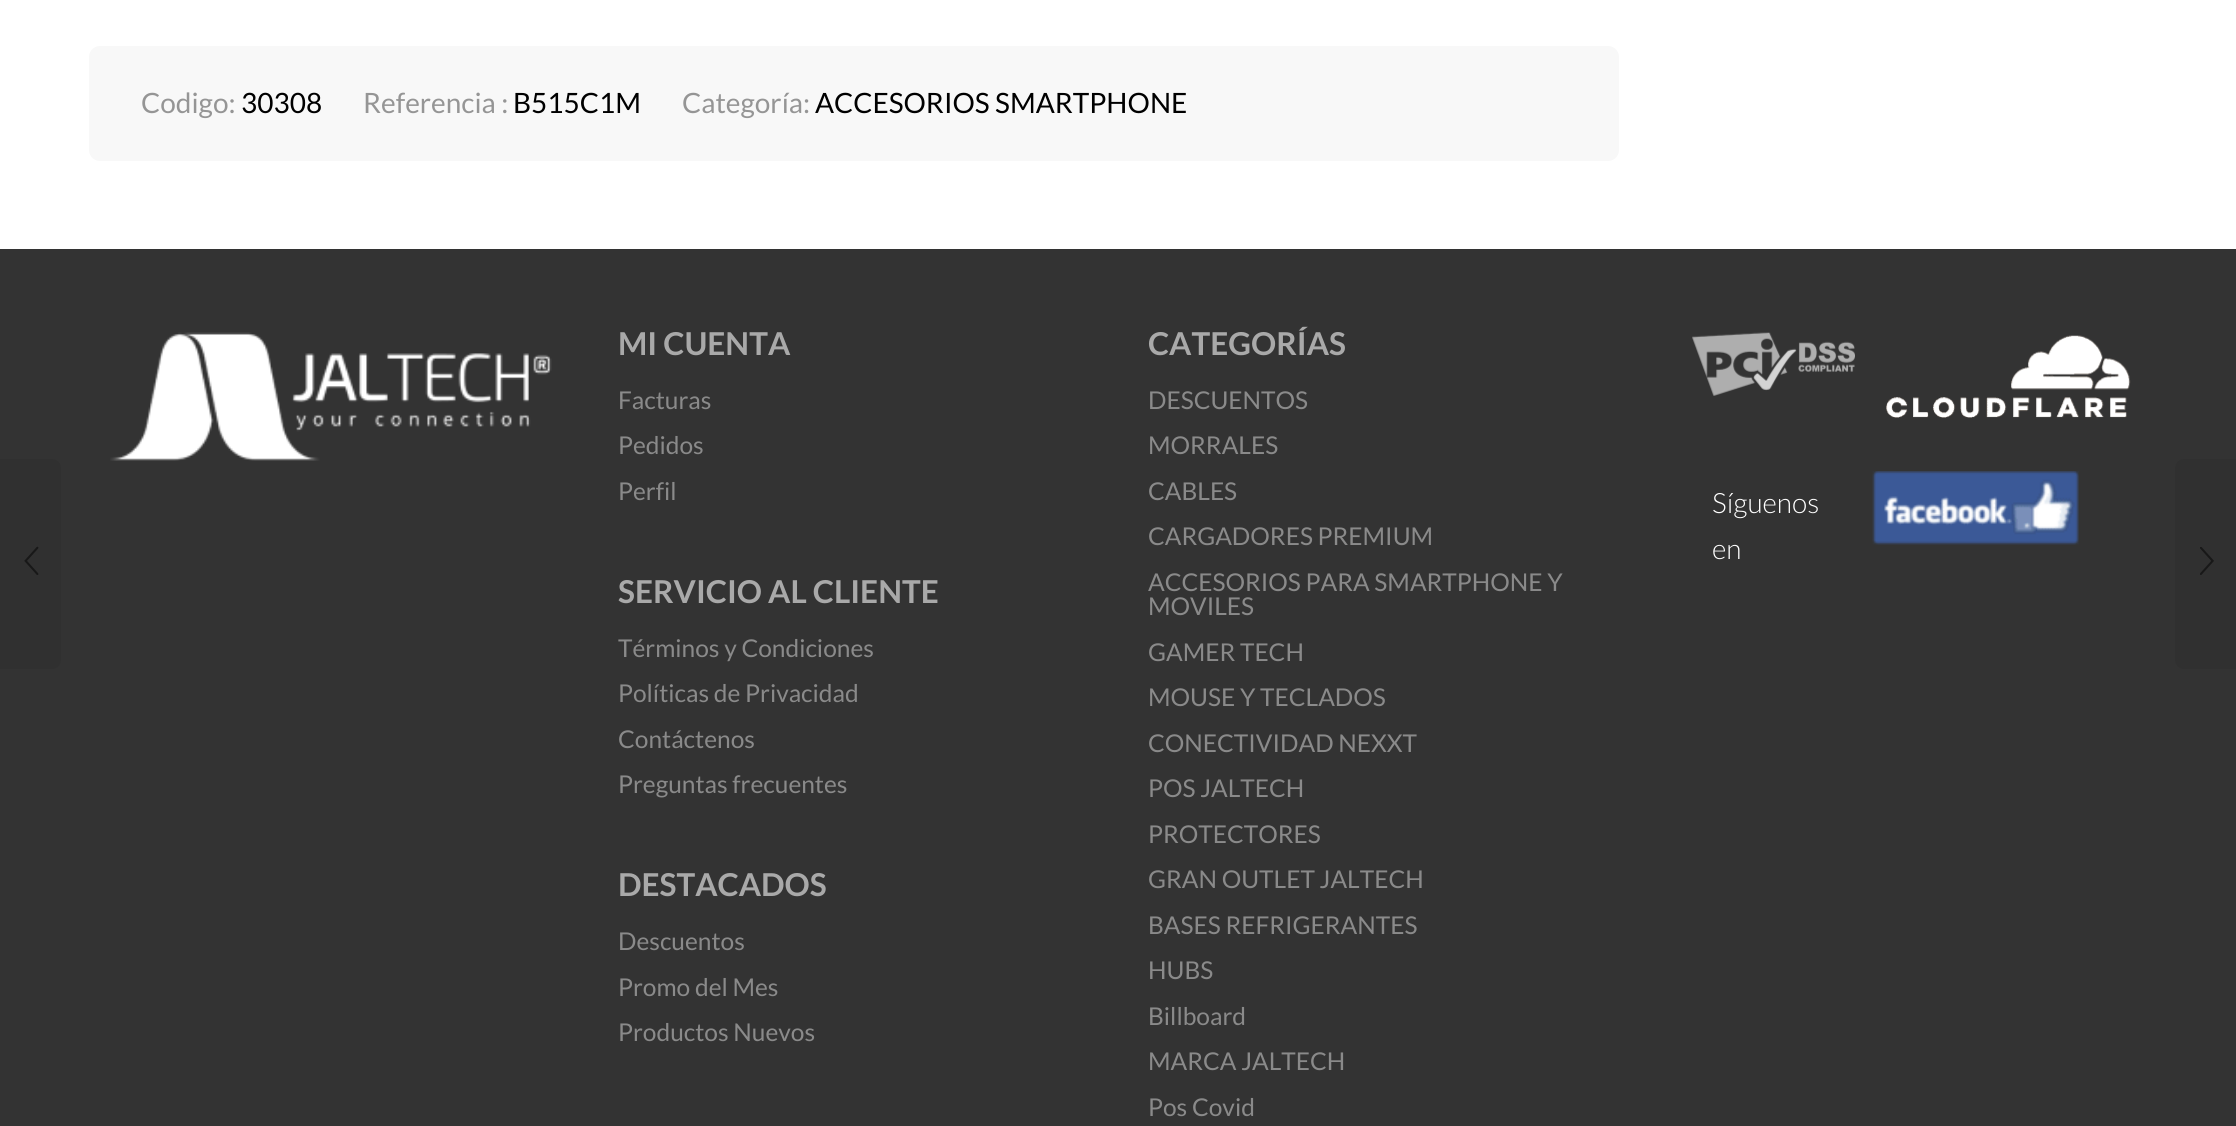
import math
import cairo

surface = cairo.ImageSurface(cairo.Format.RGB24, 2236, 1126)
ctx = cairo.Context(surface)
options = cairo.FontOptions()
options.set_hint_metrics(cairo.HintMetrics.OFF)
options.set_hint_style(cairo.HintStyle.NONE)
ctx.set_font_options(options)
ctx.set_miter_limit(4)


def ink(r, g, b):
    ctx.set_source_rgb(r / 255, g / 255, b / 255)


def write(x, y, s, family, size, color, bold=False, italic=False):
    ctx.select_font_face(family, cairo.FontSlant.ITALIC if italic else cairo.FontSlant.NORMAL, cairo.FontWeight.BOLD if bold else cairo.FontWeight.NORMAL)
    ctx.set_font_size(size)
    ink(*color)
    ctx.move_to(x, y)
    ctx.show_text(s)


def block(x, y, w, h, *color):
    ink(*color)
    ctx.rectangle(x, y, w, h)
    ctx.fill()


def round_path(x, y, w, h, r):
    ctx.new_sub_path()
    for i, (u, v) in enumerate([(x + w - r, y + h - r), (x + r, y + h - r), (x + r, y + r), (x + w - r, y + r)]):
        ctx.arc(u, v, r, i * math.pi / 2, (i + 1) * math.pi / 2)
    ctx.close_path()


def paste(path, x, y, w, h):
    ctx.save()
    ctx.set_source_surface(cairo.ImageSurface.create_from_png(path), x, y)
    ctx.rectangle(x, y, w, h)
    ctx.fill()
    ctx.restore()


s1 = dict(family="Lato", size=28, color=(149, 149, 149))
s2 = dict(family="Lato", size=28, color=(0, 0, 0))
s3 = dict(family="Lato", size=31.5, color=(169, 169, 169), bold=True)
s4 = dict(family="Lato", size=24.5, color=(138, 138, 138))
s5 = dict(family="Lato Light", size=28, color=(255, 255, 255))

ink(255, 255, 255)
ctx.paint()
ink(248, 248, 248)
round_path(89, 46, 1530, 115, 11)
ctx.fill()
write(141, 113, "Codigo:", **s1)
write(241, 113, "30308", **s2)
write(363, 113, "Referencia :", **s1)
write(513, 113, "B515C1M", **s2)
write(682, 113, "Categoría:", **s1)
write(815, 113, "ACCESORIOS SMARTPHONE", **s2)
block(0, 249, 2236, 877, 51, 51, 51)
ink(48, 48, 48)
ctx.new_path()
ctx.move_to(0, 459)
ctx.line_to(52, 459)
ctx.curve_to(57, 459, 61, 463, 61, 468)
ctx.line_to(61, 660)
ctx.curve_to(61, 665, 57, 669, 52, 669)
ctx.line_to(0, 669)
ctx.close_path()
ctx.fill()
paste("pic1.png", 24, 546, 15, 29)
ctx.new_path()
ctx.move_to(2184, 459)
ctx.line_to(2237, 459)
ctx.line_to(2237, 669)
ctx.line_to(2184, 669)
ctx.curve_to(2179, 669, 2175, 665, 2175, 660)
ctx.line_to(2175, 468)
ctx.curve_to(2175, 463, 2179, 459, 2184, 459)
ctx.close_path()
ctx.fill()
paste("pic2.png", 2200, 547, 14, 28)
paste("pic3.png", 110, 332, 442, 129)
write(618, 355, "MI CUENTA", **s3)
write(618, 409, "Facturas", **s4)
write(618, 454, "Pedidos", **s4)
write(618, 500, "Perfil", **s4)
write(618, 603, "SERVICIO AL CLIENTE", **s3)
write(618, 657, "Términos y Condiciones", **s4)
write(618, 702, "Políticas de Privacidad", **s4)
write(618, 748, "Contáctenos", **s4)
write(618, 793, "Preguntas frecuentes", **s4)
write(618, 896, "DESTACADOS", **s3)
write(618, 950, "Descuentos", **s4)
write(618, 996, "Promo del Mes", **s4)
write(618, 1041, "Productos Nuevos", **s4)
write(1148, 355, "CATEGORÍAS", **s3)
write(1148, 409, "DESCUENTOS", **s4)
write(1148, 454, "MORRALES", **s4)
write(1148, 500, "CABLES", **s4)
write(1148, 545, "CARGADORES PREMIUM", **s4)
write(1148, 591, "ACCESORIOS PARA SMARTPHONE Y", **s4)
write(1148, 615, "MOVILES", **s4)
write(1148, 661, "GAMER TECH", **s4)
write(1148, 706, "MOUSE Y TECLADOS", **s4)
write(1148, 752, "CONECTIVIDAD NEXXT", **s4)
write(1148, 797, "POS JALTECH", **s4)
write(1148, 843, "PROTECTORES", **s4)
write(1148, 888, "GRAN OUTLET JALTECH", **s4)
write(1148, 934, "BASES REFRIGERANTES", **s4)
write(1148, 979, "HUBS", **s4)
write(1148, 1025, "Billboard", **s4)
write(1148, 1070, "MARCA JALTECH", **s4)
write(1148, 1116, "Pos Covid", **s4)
paste("pic4.png", 1692, 332, 163, 64)
paste("pic5.png", 1886, 335, 245, 83)
write(1712, 513, "Síguenos", **s5)
write(1712, 559, "en", **s5)
paste("pic6.png", 1872, 471, 207, 74)
surface.write_to_png("screenshot.png")
